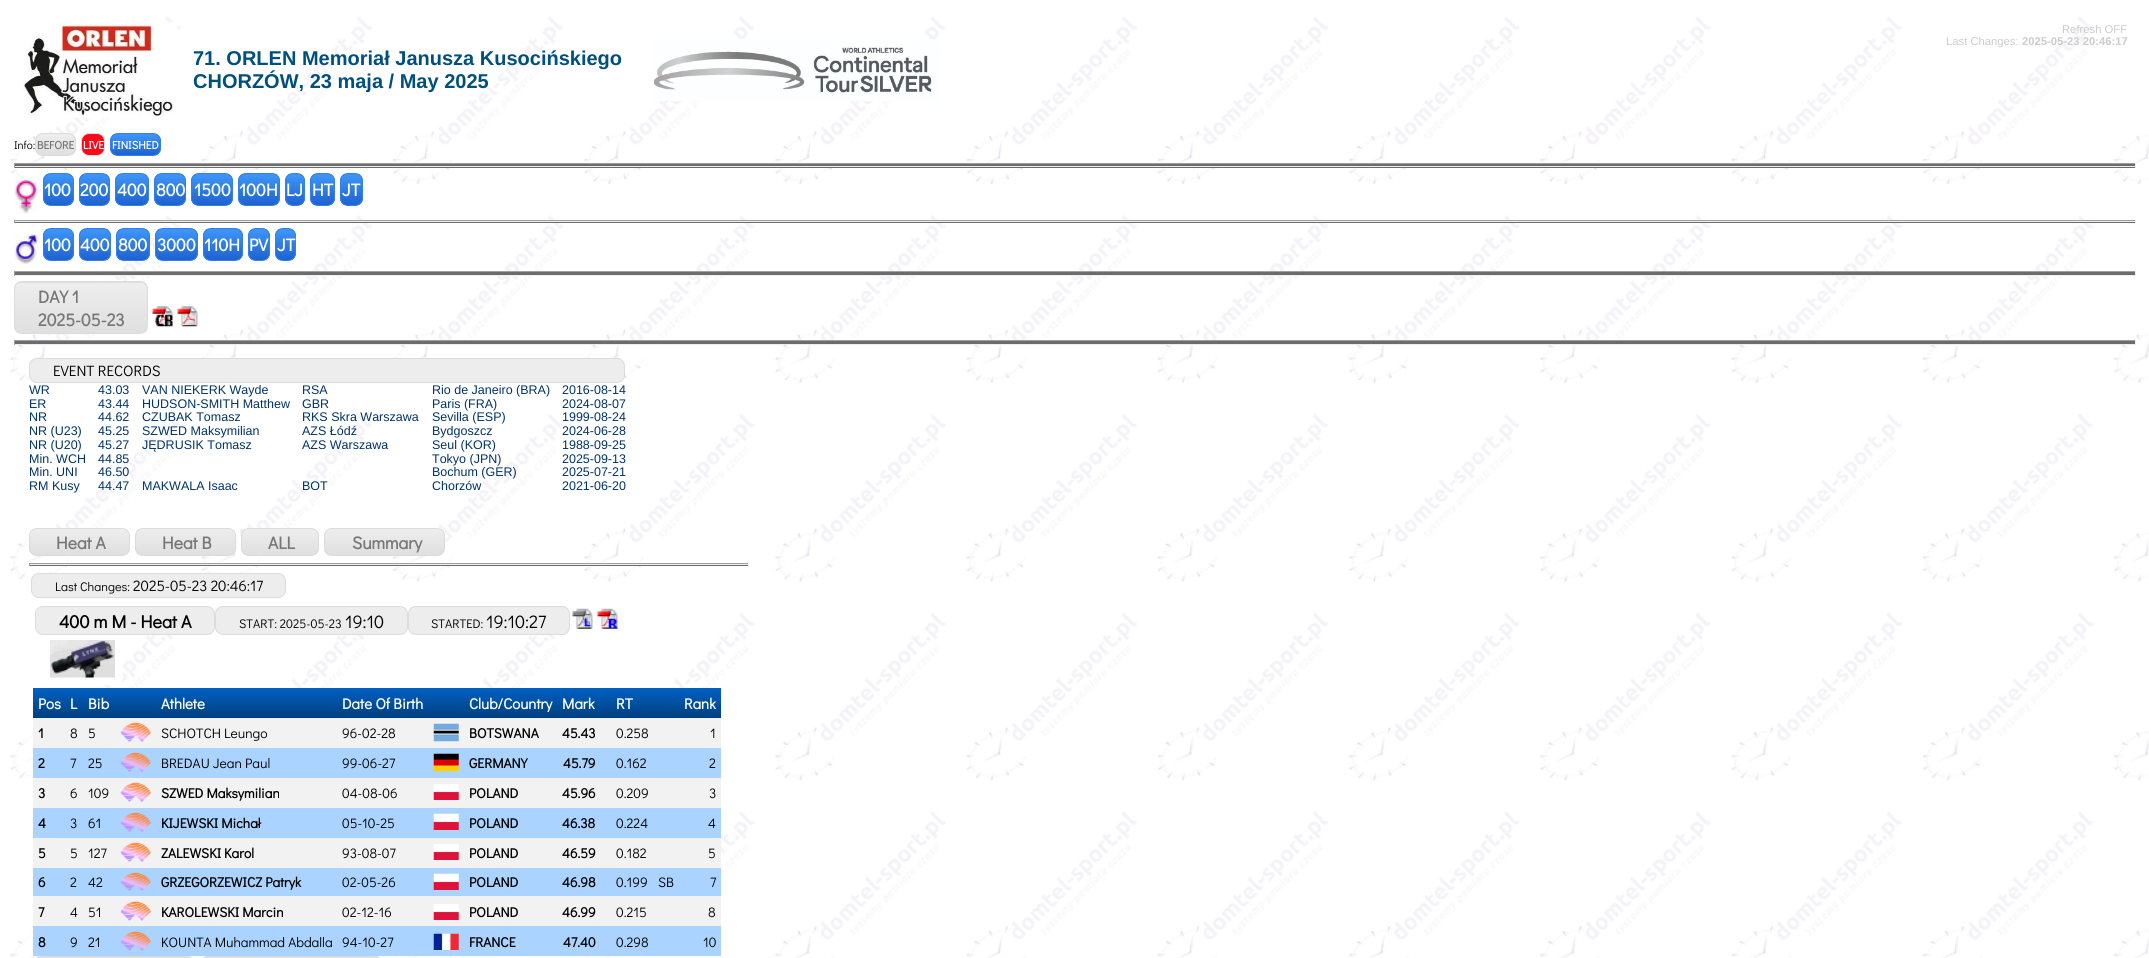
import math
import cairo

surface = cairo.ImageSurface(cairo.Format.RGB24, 2149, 958)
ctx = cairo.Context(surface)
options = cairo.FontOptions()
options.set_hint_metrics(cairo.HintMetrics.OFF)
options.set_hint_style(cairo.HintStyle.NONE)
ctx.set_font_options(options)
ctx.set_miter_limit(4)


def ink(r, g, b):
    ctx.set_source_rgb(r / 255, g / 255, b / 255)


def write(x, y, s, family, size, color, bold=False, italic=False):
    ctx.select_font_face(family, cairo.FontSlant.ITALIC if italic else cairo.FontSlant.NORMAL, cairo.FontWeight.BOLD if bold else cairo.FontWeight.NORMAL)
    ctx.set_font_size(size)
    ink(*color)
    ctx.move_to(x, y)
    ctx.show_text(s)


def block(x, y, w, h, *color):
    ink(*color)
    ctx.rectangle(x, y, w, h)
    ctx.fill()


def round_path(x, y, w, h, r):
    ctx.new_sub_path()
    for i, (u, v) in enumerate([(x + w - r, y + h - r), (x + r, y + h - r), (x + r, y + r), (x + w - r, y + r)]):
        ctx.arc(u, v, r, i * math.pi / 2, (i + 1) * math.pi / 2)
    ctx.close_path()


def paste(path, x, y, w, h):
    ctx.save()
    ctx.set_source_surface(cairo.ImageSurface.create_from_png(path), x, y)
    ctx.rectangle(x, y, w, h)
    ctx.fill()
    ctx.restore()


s1 = dict(family="Liberation Sans", size=11.25, color=(204, 204, 204))
s2 = dict(family="Liberation Sans", size=11.25, color=(204, 204, 204), bold=True)
s3 = dict(family="Liberation Sans", size=20, color=(0, 79, 124), bold=True)
s4 = dict(family="Didact Gothic", size=11.25, color=(0, 0, 0))
s5 = dict(family="Didact Gothic", size=11.25, color=(119, 119, 119), bold=True)
s6 = dict(family="Didact Gothic", size=11.25, color=(255, 255, 255), bold=True)
s7 = dict(family="Didact Gothic", size=17.5, color=(255, 255, 255), bold=True)
s8 = dict(family="Didact Gothic", size=17.5, color=(119, 119, 119), bold=True)
s9 = dict(family="Didact Gothic", size=15, color=(0, 0, 0))
s10 = dict(family="Liberation Sans", size=12.5, color=(0, 51, 102))
s11 = dict(family="Didact Gothic", size=12.5, color=(0, 0, 0))
s12 = dict(family="Didact Gothic", size=18, color=(0, 0, 0), bold=True)
s13 = dict(family="Didact Gothic", size=18, color=(0, 0, 0))
s14 = dict(family="Didact Gothic", size=15, color=(255, 255, 255), bold=True)
s15 = dict(family="Didact Gothic", size=13.75, color=(0, 0, 0), bold=True)
s16 = dict(family="Didact Gothic", size=13.75, color=(0, 0, 0))

ink(255, 255, 255)
ctx.paint()
paste("pic1.png", 10, 16, 2139, 942)
paste("pic2.png", 22, 22, 156, 96)
write(2062, 33, "Refresh OFF", **s1)
write(1946, 45, "Last Changes:", **s1)
write(2022, 45, "2025-05-23 20:46:17", **s2)
write(193, 65, "71. ORLEN Memoriał Janusza Kusocińskiego", **s3)
write(193, 88, "CHORZÓW, 23 maja / May 2025", **s3)
paste("pic3.png", 653, 39, 286, 62)
write(14, 149, "Info:", **s4)
ctx.save()
round_path(35, 133, 41, 23, 8)
ctx.clip()
gradient = cairo.LinearGradient(36, 134, 36, 155)
gradient.add_color_stop_rgba(0.05, 0.929, 0.929, 0.929, 1)
gradient.add_color_stop_rgba(1, 0.875, 0.875, 0.875, 1)
ctx.set_source(gradient)
ctx.rectangle(35, 134, 41, 21)
ctx.fill()
ctx.restore()
round_path(35.5, 133.5, 40, 22, 7.5)
ink(220, 220, 220)
ctx.set_line_width(1)
ctx.stroke()
write(37, 149, "BEFORE", **s5)
ink(255, 7, 23)
round_path(81.5, 133.5, 23, 22, 7.5)
ctx.fill_preserve()
ink(220, 220, 220)
ctx.stroke()
write(83, 149, "LIVE", **s6)
ctx.save()
round_path(110, 133, 51, 23, 8)
ctx.clip()
gradient = cairo.LinearGradient(111, 134, 111, 155)
gradient.add_color_stop_rgba(0.05, 0.239, 0.58, 0.965, 1)
gradient.add_color_stop_rgba(1, 0.118, 0.384, 0.816, 1)
ctx.set_source(gradient)
ctx.rectangle(110, 134, 51, 21)
ctx.fill()
ctx.restore()
round_path(110.5, 133.5, 50, 22, 7.5)
ink(51, 127, 237)
ctx.stroke()
write(112, 149, "FINISHED", **s6)
block(14, 164, 2122, 4, 108, 108, 108)
block(14, 163, 2122, 1, 159, 159, 159)
block(2135, 163, 1, 5, 238, 238, 238)
block(14, 166, 2122, 1, 238, 238, 238)
block(14, 163, 1, 5, 159, 159, 159)
paste("pic4.png", 14, 178, 24, 36)
ctx.save()
round_path(43, 173, 31, 33, 8)
ctx.clip()
gradient = cairo.LinearGradient(44, 174, 44, 205)
gradient.add_color_stop_rgba(0.05, 0.239, 0.58, 0.965, 1)
gradient.add_color_stop_rgba(1, 0.118, 0.384, 0.816, 1)
ctx.set_source(gradient)
ctx.rectangle(43, 174, 31, 31)
ctx.fill()
ctx.restore()
round_path(43.5, 173.5, 30, 32, 7.5)
ink(51, 127, 237)
ctx.stroke()
write(44, 196, "100", **s7)
ctx.save()
round_path(79, 173, 31, 33, 8)
ctx.clip()
gradient = cairo.LinearGradient(80, 174, 80, 205)
gradient.add_color_stop_rgba(0.05, 0.239, 0.58, 0.965, 1)
gradient.add_color_stop_rgba(1, 0.118, 0.384, 0.816, 1)
ctx.set_source(gradient)
ctx.rectangle(79, 174, 31, 31)
ctx.fill()
ctx.restore()
round_path(79.5, 173.5, 30, 32, 7.5)
ink(51, 127, 237)
ctx.stroke()
write(80, 196, "200", **s7)
ctx.save()
round_path(115, 173, 34, 33, 8)
ctx.clip()
gradient = cairo.LinearGradient(116, 174, 116, 205)
gradient.add_color_stop_rgba(0.05, 0.239, 0.58, 0.965, 1)
gradient.add_color_stop_rgba(1, 0.118, 0.384, 0.816, 1)
ctx.set_source(gradient)
ctx.rectangle(115, 174, 34, 31)
ctx.fill()
ctx.restore()
round_path(115.5, 173.5, 33, 32, 7.5)
ink(51, 127, 237)
ctx.stroke()
write(117, 196, "400", **s7)
ctx.save()
round_path(154, 173, 32, 33, 8)
ctx.clip()
gradient = cairo.LinearGradient(155, 174, 155, 205)
gradient.add_color_stop_rgba(0.05, 0.239, 0.58, 0.965, 1)
gradient.add_color_stop_rgba(1, 0.118, 0.384, 0.816, 1)
ctx.set_source(gradient)
ctx.rectangle(154, 174, 32, 31)
ctx.fill()
ctx.restore()
round_path(154.5, 173.5, 31, 32, 7.5)
ink(51, 127, 237)
ctx.stroke()
write(156, 196, "800", **s7)
ctx.save()
round_path(191, 173, 42, 33, 8)
ctx.clip()
gradient = cairo.LinearGradient(193, 174, 193, 205)
gradient.add_color_stop_rgba(0.05, 0.239, 0.58, 0.965, 1)
gradient.add_color_stop_rgba(1, 0.118, 0.384, 0.816, 1)
ctx.set_source(gradient)
ctx.rectangle(191, 174, 42, 31)
ctx.fill()
ctx.restore()
round_path(191.5, 173.5, 41, 32, 7.5)
ink(51, 127, 237)
ctx.stroke()
write(194, 196, "1500", **s7)
ctx.save()
round_path(238, 173, 42, 33, 8)
ctx.clip()
gradient = cairo.LinearGradient(239, 174, 239, 205)
gradient.add_color_stop_rgba(0.05, 0.239, 0.58, 0.965, 1)
gradient.add_color_stop_rgba(1, 0.118, 0.384, 0.816, 1)
ctx.set_source(gradient)
ctx.rectangle(238, 174, 42, 31)
ctx.fill()
ctx.restore()
round_path(238.5, 173.5, 41, 32, 7.5)
ink(51, 127, 237)
ctx.stroke()
write(239, 196, "100H", **s7)
ctx.save()
round_path(285, 173, 20, 33, 8)
ctx.clip()
gradient = cairo.LinearGradient(286, 174, 286, 205)
gradient.add_color_stop_rgba(0.05, 0.239, 0.58, 0.965, 1)
gradient.add_color_stop_rgba(1, 0.118, 0.384, 0.816, 1)
ctx.set_source(gradient)
ctx.rectangle(285, 174, 20, 31)
ctx.fill()
ctx.restore()
round_path(285.5, 173.5, 19, 32, 7.5)
ink(51, 127, 237)
ctx.stroke()
write(286, 196, "LJ", **s7)
ctx.save()
round_path(310, 173, 25, 33, 8)
ctx.clip()
gradient = cairo.LinearGradient(311, 174, 311, 205)
gradient.add_color_stop_rgba(0.05, 0.239, 0.58, 0.965, 1)
gradient.add_color_stop_rgba(1, 0.118, 0.384, 0.816, 1)
ctx.set_source(gradient)
ctx.rectangle(310, 174, 25, 31)
ctx.fill()
ctx.restore()
round_path(310.5, 173.5, 24, 32, 7.5)
ink(51, 127, 237)
ctx.stroke()
write(312, 196, "HT", **s7)
ctx.save()
round_path(340, 173, 23, 33, 8)
ctx.clip()
gradient = cairo.LinearGradient(341, 174, 341, 205)
gradient.add_color_stop_rgba(0.05, 0.239, 0.58, 0.965, 1)
gradient.add_color_stop_rgba(1, 0.118, 0.384, 0.816, 1)
ctx.set_source(gradient)
ctx.rectangle(340, 174, 23, 31)
ctx.fill()
ctx.restore()
round_path(340.5, 173.5, 22, 32, 7.5)
ink(51, 127, 237)
ctx.stroke()
write(342, 196, "JT", **s7)
block(14, 222, 2122, 1, 108, 108, 108)
block(14, 220, 2122, 1, 159, 159, 159)
block(2135, 220, 1, 3, 238, 238, 238)
block(14, 221, 2122, 1, 238, 238, 238)
block(14, 220, 1, 3, 159, 159, 159)
paste("pic5.png", 14, 233, 24, 31)
ctx.save()
round_path(43, 228, 31, 33, 8)
ctx.clip()
gradient = cairo.LinearGradient(44, 229, 44, 260)
gradient.add_color_stop_rgba(0.05, 0.239, 0.58, 0.965, 1)
gradient.add_color_stop_rgba(1, 0.118, 0.384, 0.816, 1)
ctx.set_source(gradient)
ctx.rectangle(43, 229, 31, 31)
ctx.fill()
ctx.restore()
round_path(43.5, 228.5, 30, 32, 7.5)
ink(51, 127, 237)
ctx.stroke()
write(44, 251, "100", **s7)
ctx.save()
round_path(79, 228, 32, 33, 8)
ctx.clip()
gradient = cairo.LinearGradient(80, 229, 80, 260)
gradient.add_color_stop_rgba(0.05, 0.239, 0.58, 0.965, 1)
gradient.add_color_stop_rgba(1, 0.118, 0.384, 0.816, 1)
ctx.set_source(gradient)
ctx.rectangle(79, 229, 32, 31)
ctx.fill()
ctx.restore()
round_path(79.5, 228.5, 31, 32, 7.5)
ink(51, 127, 237)
ctx.stroke()
write(80, 251, "400", **s7)
ctx.save()
round_path(116, 228, 34, 33, 8)
ctx.clip()
gradient = cairo.LinearGradient(118, 229, 118, 260)
gradient.add_color_stop_rgba(0.05, 0.239, 0.58, 0.965, 1)
gradient.add_color_stop_rgba(1, 0.118, 0.384, 0.816, 1)
ctx.set_source(gradient)
ctx.rectangle(116, 229, 34, 31)
ctx.fill()
ctx.restore()
round_path(116.5, 228.5, 33, 32, 7.5)
ink(51, 127, 237)
ctx.stroke()
write(118, 251, "800", **s7)
ctx.save()
round_path(155, 228, 43, 33, 8)
ctx.clip()
gradient = cairo.LinearGradient(156, 229, 156, 260)
gradient.add_color_stop_rgba(0.05, 0.239, 0.58, 0.965, 1)
gradient.add_color_stop_rgba(1, 0.118, 0.384, 0.816, 1)
ctx.set_source(gradient)
ctx.rectangle(155, 229, 43, 31)
ctx.fill()
ctx.restore()
round_path(155.5, 228.5, 42, 32, 7.5)
ink(51, 127, 237)
ctx.stroke()
write(157, 251, "3000", **s7)
ctx.save()
round_path(203, 228, 40, 33, 8)
ctx.clip()
gradient = cairo.LinearGradient(204, 229, 204, 260)
gradient.add_color_stop_rgba(0.05, 0.239, 0.58, 0.965, 1)
gradient.add_color_stop_rgba(1, 0.118, 0.384, 0.816, 1)
ctx.set_source(gradient)
ctx.rectangle(203, 229, 40, 31)
ctx.fill()
ctx.restore()
round_path(203.5, 228.5, 39, 32, 7.5)
ink(51, 127, 237)
ctx.stroke()
write(204, 251, "110H", **s7)
ctx.save()
round_path(248, 228, 22, 33, 8)
ctx.clip()
gradient = cairo.LinearGradient(249, 229, 249, 260)
gradient.add_color_stop_rgba(0.05, 0.239, 0.58, 0.965, 1)
gradient.add_color_stop_rgba(1, 0.118, 0.384, 0.816, 1)
ctx.set_source(gradient)
ctx.rectangle(248, 229, 22, 31)
ctx.fill()
ctx.restore()
round_path(248.5, 228.5, 21, 32, 7.5)
ink(51, 127, 237)
ctx.stroke()
write(249, 251, "PV", **s7)
ctx.save()
round_path(275, 228, 21, 33, 8)
ctx.clip()
gradient = cairo.LinearGradient(276, 229, 276, 260)
gradient.add_color_stop_rgba(0.05, 0.239, 0.58, 0.965, 1)
gradient.add_color_stop_rgba(1, 0.118, 0.384, 0.816, 1)
ctx.set_source(gradient)
ctx.rectangle(275, 229, 21, 31)
ctx.fill()
ctx.restore()
round_path(275.5, 228.5, 20, 32, 7.5)
ink(51, 127, 237)
ctx.stroke()
write(277, 251, "JT", **s7)
block(14, 272, 2122, 3, 108, 108, 108)
block(14, 271, 2122, 1, 159, 159, 159)
block(2135, 271, 1, 5, 238, 238, 238)
block(14, 275, 2122, 1, 238, 238, 238)
block(14, 271, 1, 5, 159, 159, 159)
ctx.save()
round_path(14, 281, 134, 53, 8)
ctx.clip()
gradient = cairo.LinearGradient(15, 233, 15, 283)
gradient.add_color_stop_rgba(0.05, 0.929, 0.929, 0.929, 1)
gradient.add_color_stop_rgba(1, 0.875, 0.875, 0.875, 1)
ctx.set_source(gradient)
ctx.rectangle(14, 281, 134, 2)
ctx.fill()
gradient = cairo.LinearGradient(15, 283, 15, 333)
gradient.add_color_stop_rgba(0.05, 0.929, 0.929, 0.929, 1)
gradient.add_color_stop_rgba(1, 0.875, 0.875, 0.875, 1)
ctx.set_source(gradient)
ctx.rectangle(14, 283, 134, 50)
ctx.fill()
ctx.restore()
round_path(14.5, 281.5, 133, 52, 7.5)
ink(220, 220, 220)
ctx.stroke()
write(38, 303, "DAY 1", **s8)
write(38, 326, "2025-05-23", **s8)
paste("pic6.png", 152, 306, 21, 21)
paste("pic7.png", 177, 306, 21, 21)
block(14, 341, 2122, 3, 108, 108, 108)
block(14, 340, 2122, 1, 159, 159, 159)
block(2135, 340, 1, 5, 238, 238, 238)
block(14, 344, 2122, 1, 238, 238, 238)
block(14, 340, 1, 5, 159, 159, 159)
ink(237, 237, 237)
round_path(29.5, 358.5, 595, 24, 7.5)
ctx.fill_preserve()
ink(220, 220, 220)
ctx.stroke()
write(53, 376, "EVENT RECORDS", **s9)
write(29, 394, "WR", **s10)
write(98, 394, "43.03", **s10)
write(142, 394, "VAN NIEKERK Wayde", **s10)
write(302, 394, "RSA", **s10)
write(432, 394, "Rio de Janeiro (BRA)", **s10)
write(562, 394, "2016-08-14", **s10)
write(29, 408, "ER", **s10)
write(98, 408, "43.44", **s10)
write(142, 408, "HUDSON-SMITH Matthew", **s10)
write(302, 408, "GBR", **s10)
write(432, 408, "Paris (FRA)", **s10)
write(562, 408, "2024-08-07", **s10)
write(29, 421, "NR", **s10)
write(98, 421, "44.62", **s10)
write(142, 421, "CZUBAK Tomasz", **s10)
write(302, 421, "RKS Skra Warszawa", **s10)
write(432, 421, "Sevilla (ESP)", **s10)
write(562, 421, "1999-08-24", **s10)
write(29, 435, "NR (U23)", **s10)
write(98, 435, "45.25", **s10)
write(142, 435, "SZWED Maksymilian", **s10)
write(302, 435, "AZS Łódź", **s10)
write(432, 435, "Bydgoszcz", **s10)
write(562, 435, "2024-06-28", **s10)
write(29, 449, "NR (U20)", **s10)
write(98, 449, "45.27", **s10)
write(142, 449, "JĘDRUSIK Tomasz", **s10)
write(302, 449, "AZS Warszawa", **s10)
write(432, 449, "Seul (KOR)", **s10)
write(562, 449, "1988-09-25", **s10)
write(29, 463, "Min. WCH", **s10)
write(98, 463, "44.85", **s10)
write(432, 463, "Tokyo (JPN)", **s10)
write(562, 463, "2025-09-13", **s10)
write(29, 476, "Min. UNI", **s10)
write(98, 476, "46.50", **s10)
write(432, 476, "Bochum (GER)", **s10)
write(562, 476, "2025-07-21", **s10)
write(29, 490, "RM Kusy", **s10)
write(98, 490, "44.47", **s10)
write(142, 490, "MAKWALA Isaac", **s10)
write(302, 490, "BOT", **s10)
write(432, 490, "Chorzów", **s10)
write(562, 490, "2021-06-20", **s10)
ctx.save()
round_path(29, 528, 101, 28, 8)
ctx.clip()
gradient = cairo.LinearGradient(30, 529, 30, 555)
gradient.add_color_stop_rgba(0.05, 0.929, 0.929, 0.929, 1)
gradient.add_color_stop_rgba(1, 0.875, 0.875, 0.875, 1)
ctx.set_source(gradient)
ctx.rectangle(29, 529, 101, 26)
ctx.fill()
ctx.restore()
round_path(29.5, 528.5, 100, 27, 7.5)
ink(220, 220, 220)
ctx.stroke()
write(56, 549, "Heat A", **s8)
ctx.save()
round_path(135, 528, 101, 28, 8)
ctx.clip()
gradient = cairo.LinearGradient(136, 529, 136, 555)
gradient.add_color_stop_rgba(0.05, 0.929, 0.929, 0.929, 1)
gradient.add_color_stop_rgba(1, 0.875, 0.875, 0.875, 1)
ctx.set_source(gradient)
ctx.rectangle(135, 529, 101, 26)
ctx.fill()
ctx.restore()
round_path(135.5, 528.5, 100, 27, 7.5)
ink(220, 220, 220)
ctx.stroke()
write(162, 549, "Heat B", **s8)
ctx.save()
round_path(241, 528, 78, 28, 8)
ctx.clip()
gradient = cairo.LinearGradient(243, 529, 243, 555)
gradient.add_color_stop_rgba(0.05, 0.929, 0.929, 0.929, 1)
gradient.add_color_stop_rgba(1, 0.875, 0.875, 0.875, 1)
ctx.set_source(gradient)
ctx.rectangle(241, 529, 78, 26)
ctx.fill()
ctx.restore()
round_path(241.5, 528.5, 77, 27, 7.5)
ink(220, 220, 220)
ctx.stroke()
write(268, 549, "ALL", **s8)
ctx.save()
round_path(324, 528, 121, 28, 8)
ctx.clip()
gradient = cairo.LinearGradient(325, 529, 325, 555)
gradient.add_color_stop_rgba(0.05, 0.929, 0.929, 0.929, 1)
gradient.add_color_stop_rgba(1, 0.875, 0.875, 0.875, 1)
ctx.set_source(gradient)
ctx.rectangle(324, 529, 121, 26)
ctx.fill()
ctx.restore()
round_path(324.5, 528.5, 120, 27, 7.5)
ink(220, 220, 220)
ctx.stroke()
write(352, 549, "Summary", **s8)
block(29, 565, 720, 1, 108, 108, 108)
block(29, 563, 720, 1, 159, 159, 159)
block(748, 563, 1, 3, 238, 238, 238)
block(29, 564, 720, 1, 238, 238, 238)
block(29, 563, 1, 3, 159, 159, 159)
ink(237, 237, 237)
round_path(31.5, 573.5, 254, 24, 7.5)
ctx.fill_preserve()
ink(220, 220, 220)
ctx.stroke()
write(55, 591, "Last Changes:", **s11)
write(133, 591, "2025-05-23 20:46:17", **s9)
ink(237, 237, 237)
round_path(35.5, 606.5, 179, 28, 7.5)
ctx.fill_preserve()
ink(220, 220, 220)
ctx.stroke()
write(59, 628, "400 m M - Heat A", **s12)
ink(237, 237, 237)
round_path(215.5, 606.5, 192, 28, 7.5)
ctx.fill_preserve()
ink(220, 220, 220)
ctx.stroke()
write(239, 628, "START: 2025-05-23", **s11)
write(345, 628, "19:10", **s13)
ink(237, 237, 237)
round_path(408.5, 606.5, 161, 28, 7.5)
ctx.fill_preserve()
ink(220, 220, 220)
ctx.stroke()
write(431, 628, "STARTED:", **s11)
write(486, 628, "19:10:27", **s13)
paste("pic8.png", 572, 608, 21, 21)
paste("pic9.png", 597, 608, 21, 21)
ink(255, 255, 255)
round_path(35, 638, 88, 47, 8)
ctx.fill()
paste("pic10.png", 50, 640, 65, 38)
gradient = cairo.LinearGradient(33, 688, 33, 718)
gradient.add_color_stop_rgba(0.05, 0, 0.373, 0.749, 1)
gradient.add_color_stop_rgba(1, 0, 0.247, 0.498, 1)
ctx.set_source(gradient)
ctx.rectangle(33, 688, 32, 30)
ctx.fill()
write(38, 709, "Pos", **s14)
gradient = cairo.LinearGradient(65, 688, 65, 718)
gradient.add_color_stop_rgba(0.05, 0, 0.373, 0.749, 1)
gradient.add_color_stop_rgba(1, 0, 0.247, 0.498, 1)
ctx.set_source(gradient)
ctx.rectangle(65, 688, 19, 30)
ctx.fill()
write(70, 709, "L", **s14)
gradient = cairo.LinearGradient(84, 688, 84, 718)
gradient.add_color_stop_rgba(0.05, 0, 0.373, 0.749, 1)
gradient.add_color_stop_rgba(1, 0, 0.247, 0.498, 1)
ctx.set_source(gradient)
ctx.rectangle(84, 688, 31, 30)
ctx.fill()
write(88, 709, "Bib", **s14)
gradient = cairo.LinearGradient(115, 688, 115, 718)
gradient.add_color_stop_rgba(0.05, 0, 0.373, 0.749, 1)
gradient.add_color_stop_rgba(1, 0, 0.247, 0.498, 1)
ctx.set_source(gradient)
ctx.rectangle(115, 688, 41, 30)
ctx.fill()
gradient = cairo.LinearGradient(156, 688, 156, 718)
gradient.add_color_stop_rgba(0.05, 0, 0.373, 0.749, 1)
gradient.add_color_stop_rgba(1, 0, 0.247, 0.498, 1)
ctx.set_source(gradient)
ctx.rectangle(156, 688, 182, 30)
ctx.fill()
write(161, 709, "Athlete", **s14)
gradient = cairo.LinearGradient(338, 688, 338, 718)
gradient.add_color_stop_rgba(0.05, 0, 0.373, 0.749, 1)
gradient.add_color_stop_rgba(1, 0, 0.247, 0.498, 1)
ctx.set_source(gradient)
ctx.rectangle(338, 688, 91, 30)
ctx.fill()
write(342, 709, "Date Of Birth", **s14)
gradient = cairo.LinearGradient(429, 688, 429, 718)
gradient.add_color_stop_rgba(0.05, 0, 0.373, 0.749, 1)
gradient.add_color_stop_rgba(1, 0, 0.247, 0.498, 1)
ctx.set_source(gradient)
ctx.rectangle(429, 688, 35, 30)
ctx.fill()
gradient = cairo.LinearGradient(464, 688, 464, 718)
gradient.add_color_stop_rgba(0.05, 0, 0.373, 0.749, 1)
gradient.add_color_stop_rgba(1, 0, 0.247, 0.498, 1)
ctx.set_source(gradient)
ctx.rectangle(464, 688, 94, 30)
ctx.fill()
write(469, 709, "Club/Country", **s14)
gradient = cairo.LinearGradient(558, 688, 558, 718)
gradient.add_color_stop_rgba(0.05, 0, 0.373, 0.749, 1)
gradient.add_color_stop_rgba(1, 0, 0.247, 0.498, 1)
ctx.set_source(gradient)
ctx.rectangle(558, 688, 42, 30)
ctx.fill()
write(562, 709, "Mark", **s14)
gradient = cairo.LinearGradient(600, 688, 600, 718)
gradient.add_color_stop_rgba(0.05, 0, 0.373, 0.749, 1)
gradient.add_color_stop_rgba(1, 0, 0.247, 0.498, 1)
ctx.set_source(gradient)
ctx.rectangle(600, 688, 10, 30)
ctx.fill()
gradient = cairo.LinearGradient(610, 688, 610, 718)
gradient.add_color_stop_rgba(0.05, 0, 0.373, 0.749, 1)
gradient.add_color_stop_rgba(1, 0, 0.247, 0.498, 1)
ctx.set_source(gradient)
ctx.rectangle(610, 688, 44, 30)
ctx.fill()
write(616, 709, "RT", **s14)
gradient = cairo.LinearGradient(654, 688, 654, 718)
gradient.add_color_stop_rgba(0.05, 0, 0.373, 0.749, 1)
gradient.add_color_stop_rgba(1, 0, 0.247, 0.498, 1)
ctx.set_source(gradient)
ctx.rectangle(654, 688, 25, 30)
ctx.fill()
gradient = cairo.LinearGradient(679, 688, 679, 718)
gradient.add_color_stop_rgba(0.05, 0, 0.373, 0.749, 1)
gradient.add_color_stop_rgba(1, 0, 0.247, 0.498, 1)
ctx.set_source(gradient)
ctx.rectangle(679, 688, 42, 30)
ctx.fill()
write(684, 709, "Rank", **s14)
block(33, 718, 688, 30, 242, 242, 242)
write(38, 738, "1", **s15)
write(70, 738, "8", **s16)
write(88, 738, "5", **s16)
paste("pic11.png", 120, 722, 32, 20)
write(161, 738, "SCHOTCH Leungo", **s16)
write(342, 738, "96-02-28", **s16)
paste("pic12.png", 433, 723, 26, 19)
write(469, 738, "BOTSWANA", **s15)
write(562, 738, "45.43", **s15)
write(616, 738, "0.258", **s16)
write(710, 738, "1", **s16)
block(33, 748, 688, 30, 170, 212, 255)
write(38, 768, "2", **s15)
write(70, 768, "7", **s16)
write(88, 768, "25", **s16)
paste("pic13.png", 120, 752, 32, 20)
write(161, 768, "BREDAU Jean Paul", **s16)
write(342, 768, "99-06-27", **s16)
paste("pic14.png", 433, 753, 26, 19)
write(469, 768, "GERMANY", **s15)
write(563, 768, "45.79", **s15)
write(616, 768, "0.162", **s16)
write(709, 768, "2", **s16)
block(33, 778, 688, 30, 242, 242, 242)
write(38, 798, "3", **s15)
write(70, 798, "6", **s16)
write(88, 798, "109", **s16)
paste("pic11.png", 120, 782, 32, 20)
write(161, 798, "SZWED Maksymilian", **s15)
write(342, 798, "04-08-06", **s16)
paste("pic15.png", 433, 784, 26, 16)
write(469, 798, "POLAND", **s15)
write(562, 798, "45.96", **s15)
write(616, 798, "0.209", **s16)
write(709, 798, "3", **s16)
block(33, 808, 688, 30, 170, 212, 255)
write(38, 828, "4", **s15)
write(70, 828, "3", **s16)
write(88, 828, "61", **s16)
paste("pic13.png", 120, 812, 32, 20)
write(161, 828, "KIJEWSKI Michał", **s15)
write(342, 828, "05-10-25", **s16)
paste("pic16.png", 433, 813, 26, 17)
write(469, 828, "POLAND", **s15)
write(562, 828, "46.38", **s15)
write(616, 828, "0.224", **s16)
write(708, 828, "4", **s16)
block(33, 838, 688, 30, 242, 242, 242)
write(38, 858, "5", **s15)
write(70, 858, "5", **s16)
write(88, 858, "127", **s16)
paste("pic11.png", 120, 842, 32, 20)
write(161, 858, "ZALEWSKI Karol", **s15)
write(342, 858, "93-08-07", **s16)
paste("pic15.png", 433, 844, 26, 16)
write(469, 858, "POLAND", **s15)
write(562, 858, "46.59", **s15)
write(616, 858, "0.182", **s16)
write(708, 858, "5", **s16)
block(33, 868, 688, 28, 170, 212, 255)
write(38, 887, "6", **s15)
write(70, 887, "2", **s16)
write(88, 887, "42", **s16)
paste("pic17.png", 120, 872, 32, 19)
write(161, 887, "GRZEGORZEWICZ Patryk", **s15)
write(342, 887, "02-05-26", **s16)
paste("pic16.png", 433, 873, 26, 17)
write(469, 887, "POLAND", **s15)
write(562, 887, "46.98", **s15)
write(616, 887, "0.199", **s16)
write(658, 887, "SB", **s16)
write(710, 887, "7", **s16)
block(33, 896, 688, 30, 242, 242, 242)
write(38, 917, "7", **s15)
write(70, 917, "4", **s16)
write(88, 917, "51", **s16)
paste("pic18.png", 120, 901, 32, 20)
write(161, 917, "KAROLEWSKI Marcin", **s15)
write(342, 917, "02-12-16", **s16)
paste("pic15.png", 433, 904, 26, 16)
write(469, 917, "POLAND", **s15)
write(562, 917, "46.99", **s15)
write(616, 917, "0.215", **s16)
write(708, 917, "8", **s16)
block(33, 926, 688, 30, 170, 212, 255)
write(38, 947, "8", **s15)
write(70, 947, "9", **s16)
write(88, 947, "21", **s16)
paste("pic19.png", 120, 931, 32, 20)
write(161, 947, "KOUNTA Muhammad Abdalla", **s16)
write(342, 947, "94-10-27", **s16)
paste("pic20.png", 433, 933, 26, 17)
write(469, 947, "FRANCE", **s15)
write(563, 947, "47.40", **s15)
write(616, 947, "0.298", **s16)
write(703, 947, "10", **s16)
ctx.save()
round_path(33, 956, 162, 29, 8)
ctx.clip()
gradient = cairo.LinearGradient(34, 931, 34, 958)
gradient.add_color_stop_rgba(0.05, 0.929, 0.929, 0.929, 1)
gradient.add_color_stop_rgba(1, 0.875, 0.875, 0.875, 1)
ctx.set_source(gradient)
ctx.rectangle(33, 956, 162, 2)
ctx.fill()
ctx.restore()
round_path(33.5, 956.5, 161, 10, 7.5)
ink(220, 220, 220)
ctx.stroke()
ctx.save()
round_path(200, 956, 183, 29, 8)
ctx.clip()
gradient = cairo.LinearGradient(201, 931, 201, 958)
gradient.add_color_stop_rgba(0.05, 0.929, 0.929, 0.929, 1)
gradient.add_color_stop_rgba(1, 0.875, 0.875, 0.875, 1)
ctx.set_source(gradient)
ctx.rectangle(200, 956, 183, 2)
ctx.fill()
ctx.restore()
round_path(200.5, 956.5, 182, 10, 7.5)
ctx.stroke()
surface.write_to_png("screenshot.png")
